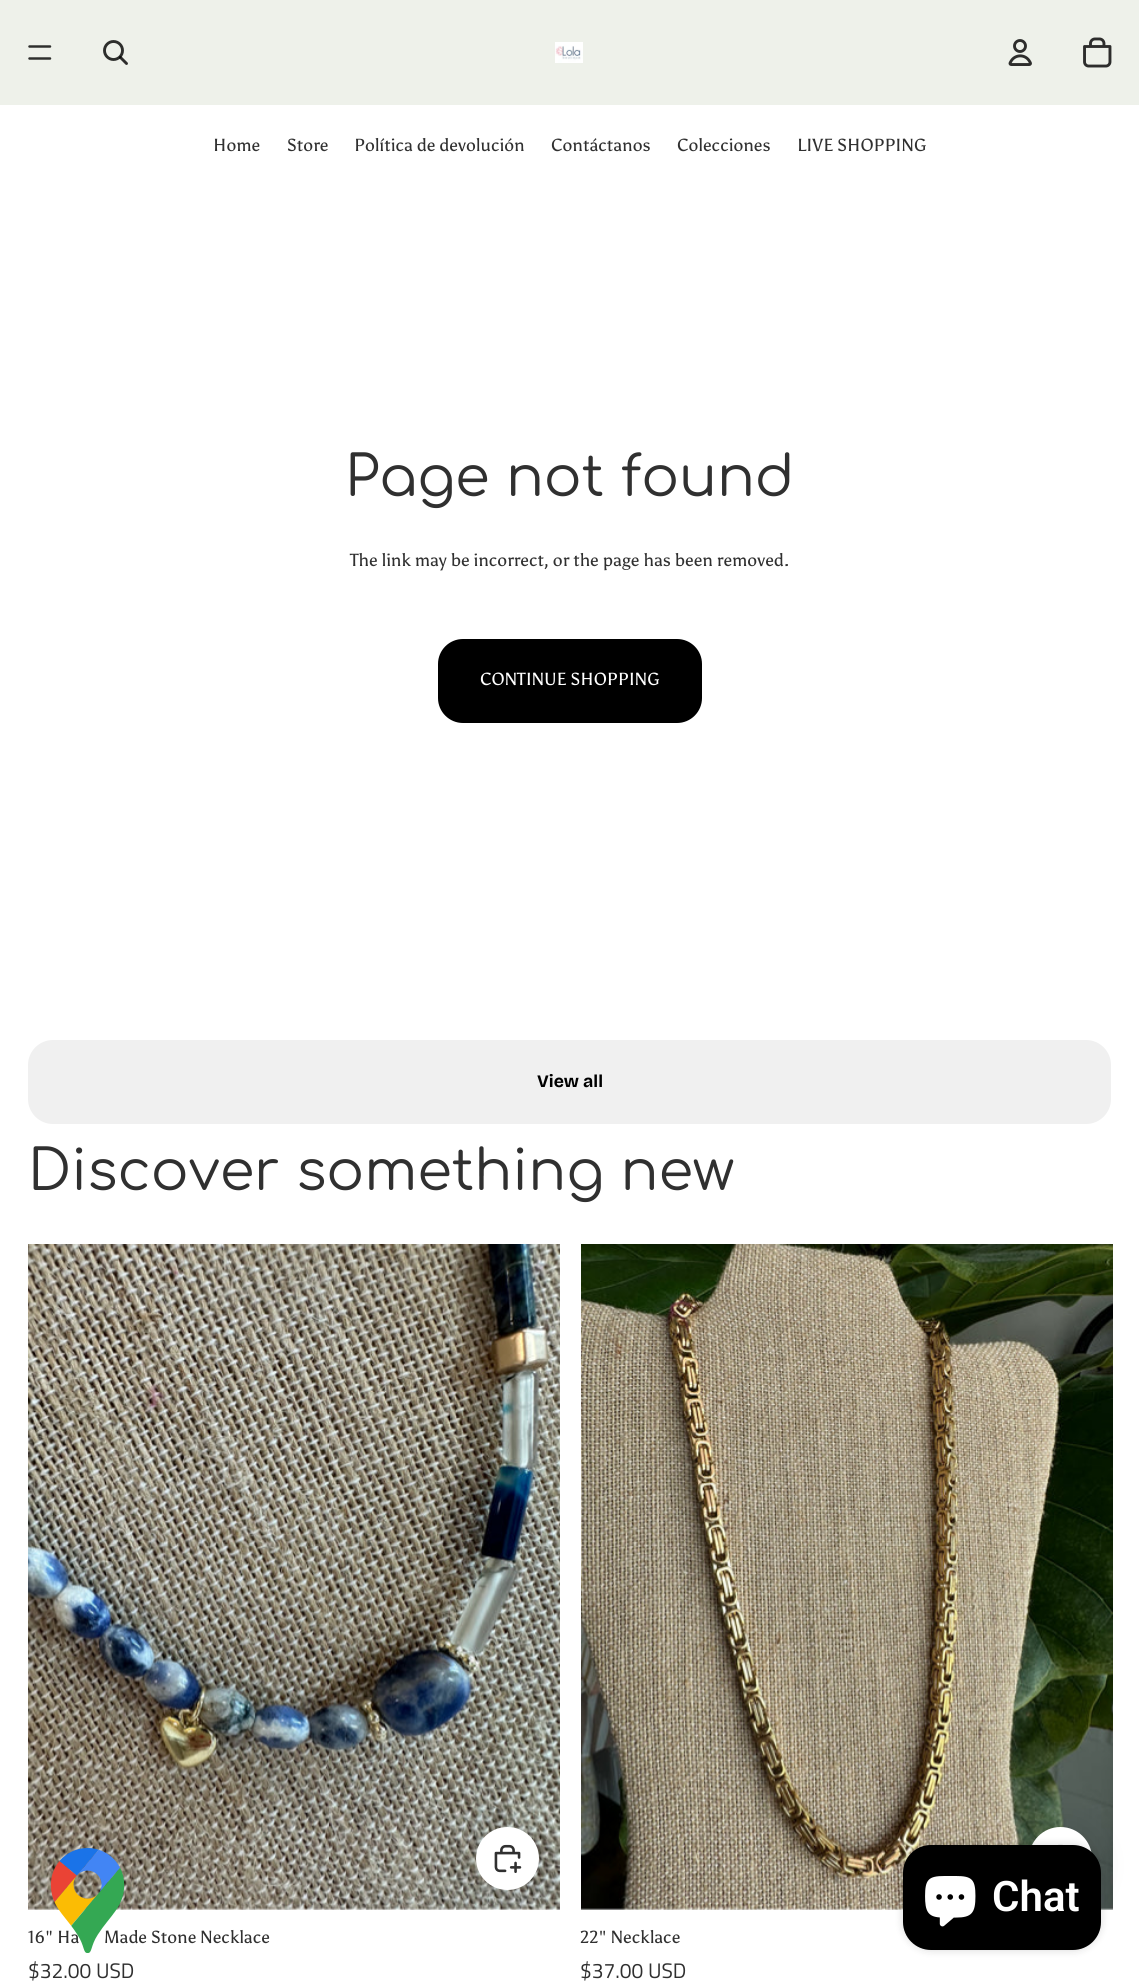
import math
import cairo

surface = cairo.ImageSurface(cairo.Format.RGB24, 1139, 1986)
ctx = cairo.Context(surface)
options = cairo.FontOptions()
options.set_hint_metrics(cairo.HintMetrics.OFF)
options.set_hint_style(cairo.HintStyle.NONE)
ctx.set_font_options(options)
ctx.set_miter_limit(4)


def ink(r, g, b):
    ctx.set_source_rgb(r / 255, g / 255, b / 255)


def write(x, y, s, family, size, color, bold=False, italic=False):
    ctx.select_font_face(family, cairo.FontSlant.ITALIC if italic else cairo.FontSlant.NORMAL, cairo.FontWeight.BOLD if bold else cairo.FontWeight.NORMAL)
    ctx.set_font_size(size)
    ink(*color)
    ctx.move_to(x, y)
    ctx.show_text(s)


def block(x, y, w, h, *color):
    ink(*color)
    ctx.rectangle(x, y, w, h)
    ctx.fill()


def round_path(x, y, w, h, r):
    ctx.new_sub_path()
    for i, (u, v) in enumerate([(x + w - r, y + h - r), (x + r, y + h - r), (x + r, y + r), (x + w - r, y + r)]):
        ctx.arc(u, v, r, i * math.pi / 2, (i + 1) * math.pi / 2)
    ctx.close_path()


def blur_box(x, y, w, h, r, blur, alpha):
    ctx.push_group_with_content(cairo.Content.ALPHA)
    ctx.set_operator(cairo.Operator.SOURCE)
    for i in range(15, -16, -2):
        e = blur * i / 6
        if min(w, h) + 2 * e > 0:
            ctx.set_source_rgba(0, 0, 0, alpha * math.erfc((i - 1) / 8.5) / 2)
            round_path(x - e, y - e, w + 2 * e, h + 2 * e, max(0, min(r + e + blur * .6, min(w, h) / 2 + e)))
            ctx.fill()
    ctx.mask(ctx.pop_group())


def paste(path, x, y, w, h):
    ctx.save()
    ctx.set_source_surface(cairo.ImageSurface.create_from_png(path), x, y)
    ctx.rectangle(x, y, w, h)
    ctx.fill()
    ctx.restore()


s1 = dict(family="Asul", size=17.5, color=(48, 48, 48))
s2 = dict(family="Comfortaa", size=56, color=(48, 48, 48))
s3 = dict(family="Asul", size=17.5, color=(255, 255, 255))
s4 = dict(family="Bricolage Grotesque", size=17.5, color=(0, 0, 0), bold=True)
s5 = dict(family="Titillium Web", size=21, color=(48, 48, 48))
s6 = dict(family="Roboto SemiBold", size=42, color=(255, 255, 255))

ink(255, 255, 255)
ctx.paint()
block(0, 0, 1139, 105, 238, 241, 234)
ctx.new_path()
ctx.move_to(29.5, 46.5)
ctx.line_to(50, 46.5)
ctx.move_to(29.5, 58.5)
ctx.line_to(50, 58.5)
ink(45, 46, 44)
ctx.set_line_width(2.5)
ctx.set_line_cap(cairo.LineCap.ROUND)
ctx.stroke()
ctx.arc(113.5, 50.5, 9, 0, 2 * math.pi)
ctx.set_line_width(2.9)
ctx.set_line_cap(cairo.LineCap.BUTT)
ctx.stroke()
ctx.new_path()
ctx.move_to(120.5, 57.5)
ctx.line_to(126.5, 63.5)
ctx.set_source_rgba(0, 0, 0, 0.81)
ctx.set_line_cap(cairo.LineCap.ROUND)
ctx.set_line_join(cairo.LineJoin.ROUND)
ctx.stroke()
paste("pic1.png", 555, 42, 28, 21)
paste("pic2.png", 1008, 39, 24, 27)
paste("pic3.png", 1083, 37, 29, 31)
write(213, 151, "Home", **s1)
write(287, 151, "Store", **s1)
write(354, 151, "Política de devolución", **s1)
write(551, 151, "Contáctanos", **s1)
write(677, 151, "Colecciones", **s1)
write(797, 151, "LIVE SHOPPING", **s1)
write(345, 496, "Page not found", **s2)
write(350, 566, "The link may be incorrect, or the page has been removed.", **s1)
ink(0, 0, 0)
round_path(439, 640, 262, 82, 24)
ctx.fill_preserve()
ctx.set_line_width(2)
ctx.set_line_cap(cairo.LineCap.BUTT)
ctx.set_line_join(cairo.LineJoin.MITER)
ctx.stroke()
write(480, 685, "CONTINUE SHOPPING", **s3)
ink(240, 240, 240)
round_path(28, 1040, 1083, 84, 25)
ctx.fill()
write(537, 1087, "View all", **s4)
write(28, 1190, "Discover something new", **s2)
paste("pic4.png", 28, 1244, 532, 666)
ctx.save()
ctx.rectangle(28, 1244, 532, 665)
ctx.clip()
ink(0, 0, 0)
blur_box(476, 1834, 63, 63, 31.5, 17.5, 0.15)
ctx.restore()
ink(255, 255, 255)
ctx.arc(507.5, 1858.5, 31.5, 0, 2 * math.pi)
ctx.fill()
paste("pic5.png", 494, 1844, 28, 29)
write(28, 1943, "16\" Ha", **s1)
write(104, 1943, "Made Stone Necklace", **s1)
write(28, 1978, "$32.00 USD", **s5)
paste("pic6.png", 581, 1244, 532, 666)
ink(0, 0, 0)
blur_box(1029, 1834, 63, 63, 31.5, 17.5, 0.15)
ink(255, 255, 255)
ctx.arc(1060.5, 1858.5, 31.5, 0, 2 * math.pi)
ctx.fill()
paste("pic7.png", 1058, 1844, 5, 1)
write(580, 1943, "22\" Necklace", **s1)
write(580, 1978, "$37.00 USD", **s5)
paste("pic8.png", 50, 1848, 75, 105)
ink(0, 0, 0)
blur_box(903, 1845, 198, 105, 28, 4.5, 0.15)
ink(0, 0, 0)
round_path(903, 1845, 198, 105, 28)
ctx.fill()
paste("pic9.png", 925, 1876, 51, 51)
write(992, 1911, "Chat", **s6)
surface.write_to_png("screenshot.png")
